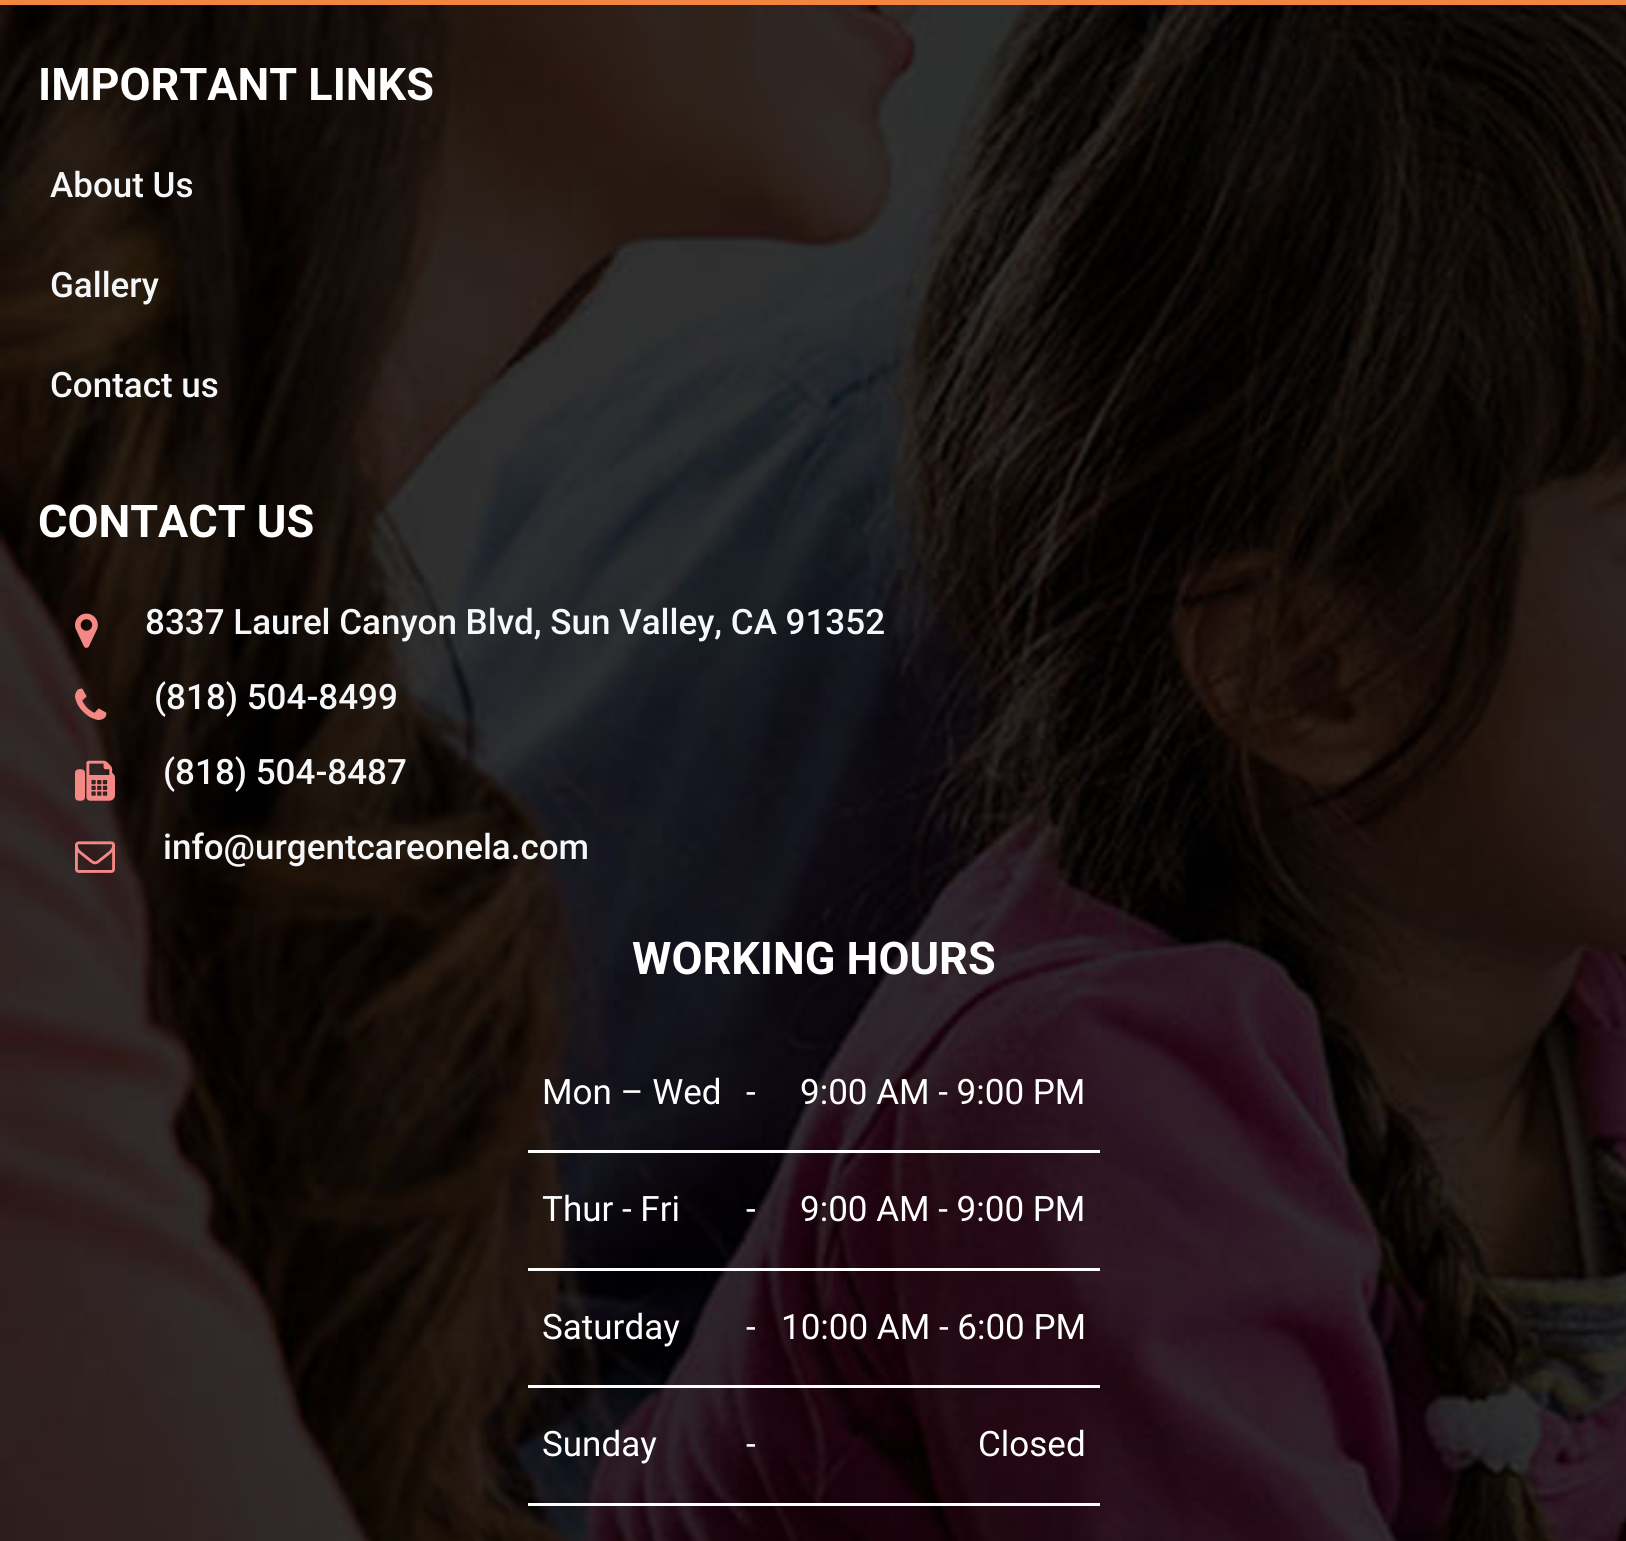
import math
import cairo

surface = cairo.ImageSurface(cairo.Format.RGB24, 1626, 1541)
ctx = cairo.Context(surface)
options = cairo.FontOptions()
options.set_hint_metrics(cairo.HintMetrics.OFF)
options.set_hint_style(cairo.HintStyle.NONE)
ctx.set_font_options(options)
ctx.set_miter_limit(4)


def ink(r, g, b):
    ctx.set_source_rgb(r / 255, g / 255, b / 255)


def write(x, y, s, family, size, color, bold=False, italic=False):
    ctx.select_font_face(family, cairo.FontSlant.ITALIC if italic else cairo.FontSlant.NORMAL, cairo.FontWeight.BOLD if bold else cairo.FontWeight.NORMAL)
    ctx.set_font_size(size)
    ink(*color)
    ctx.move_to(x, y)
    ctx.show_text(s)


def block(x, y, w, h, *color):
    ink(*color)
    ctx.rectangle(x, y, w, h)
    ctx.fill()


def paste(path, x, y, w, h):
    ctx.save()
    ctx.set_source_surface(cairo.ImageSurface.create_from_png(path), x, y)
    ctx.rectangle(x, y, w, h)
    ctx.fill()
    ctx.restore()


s1 = dict(family="Roboto", size=45, color=(255, 255, 255), bold=True)
s2 = dict(family="Roboto Medium", size=35, color=(245, 247, 249))
s3 = dict(family="Roboto", size=35, color=(255, 255, 255))

ink(255, 255, 255)
ctx.paint()
block(0, 0, 1626, 5, 242, 133, 63)
paste("pic1.png", 0, 5, 1626, 1536)
write(38, 100, "IMPORTANT LINKS", **s1)
write(50, 197, "About Us", **s2)
write(50, 297, "Gallery", **s2)
write(50, 397, "Contact us", **s2)
write(38, 537, "CONTACT US", **s1)
paste("pic2.png", 75, 613, 23, 35)
write(145, 634, "8337 Laurel Canyon Blvd, Sun Valley, CA 91352", **s2)
paste("pic3.png", 75, 688, 32, 32)
write(154, 709, "(818) 504-8499", **s2)
paste("pic4.png", 75, 760, 40, 41)
write(163, 784, "(818) 504-8487", **s2)
paste("pic5.png", 75, 841, 40, 32)
write(163, 859, "info@urgentcareonela.com", **s2)
write(632, 974, "WORKING HOURS", **s1)
ctx.set_source_rgba(1, 1, 1, 0.99)
ctx.rectangle(768, 1150, 332, 3)
ctx.fill()
ctx.rectangle(733, 1150, 37, 3)
ctx.fill()
ctx.rectangle(528, 1150, 207, 3)
ctx.fill()
write(542, 1104, "Mon – Wed", **s3)
write(746, 1104, "-", **s3)
write(800, 1104, "9:00 AM - 9:00 PM", **s3)
ctx.set_source_rgba(1, 1, 1, 0.99)
ctx.rectangle(768, 1268, 332, 3)
ctx.fill()
ctx.rectangle(733, 1268, 37, 3)
ctx.fill()
ctx.rectangle(528, 1268, 207, 3)
ctx.fill()
write(542, 1221, "Thur - Fri", **s3)
write(746, 1221, "-", **s3)
write(800, 1221, "9:00 AM - 9:00 PM", **s3)
ctx.set_source_rgba(1, 1, 1, 0.99)
ctx.rectangle(768, 1385, 332, 3)
ctx.fill()
ctx.rectangle(733, 1385, 37, 3)
ctx.fill()
ctx.rectangle(528, 1385, 207, 3)
ctx.fill()
write(542, 1339, "Saturday", **s3)
write(746, 1339, "-", **s3)
write(781, 1339, "10:00 AM - 6:00 PM", **s3)
ctx.set_source_rgba(1, 1, 1, 0.99)
ctx.rectangle(768, 1503, 332, 3)
ctx.fill()
ctx.rectangle(733, 1503, 37, 3)
ctx.fill()
ctx.rectangle(528, 1503, 207, 3)
ctx.fill()
write(542, 1456, "Sunday", **s3)
write(746, 1456, "-", **s3)
write(978, 1456, "Closed", **s3)
surface.write_to_png("screenshot.png")
